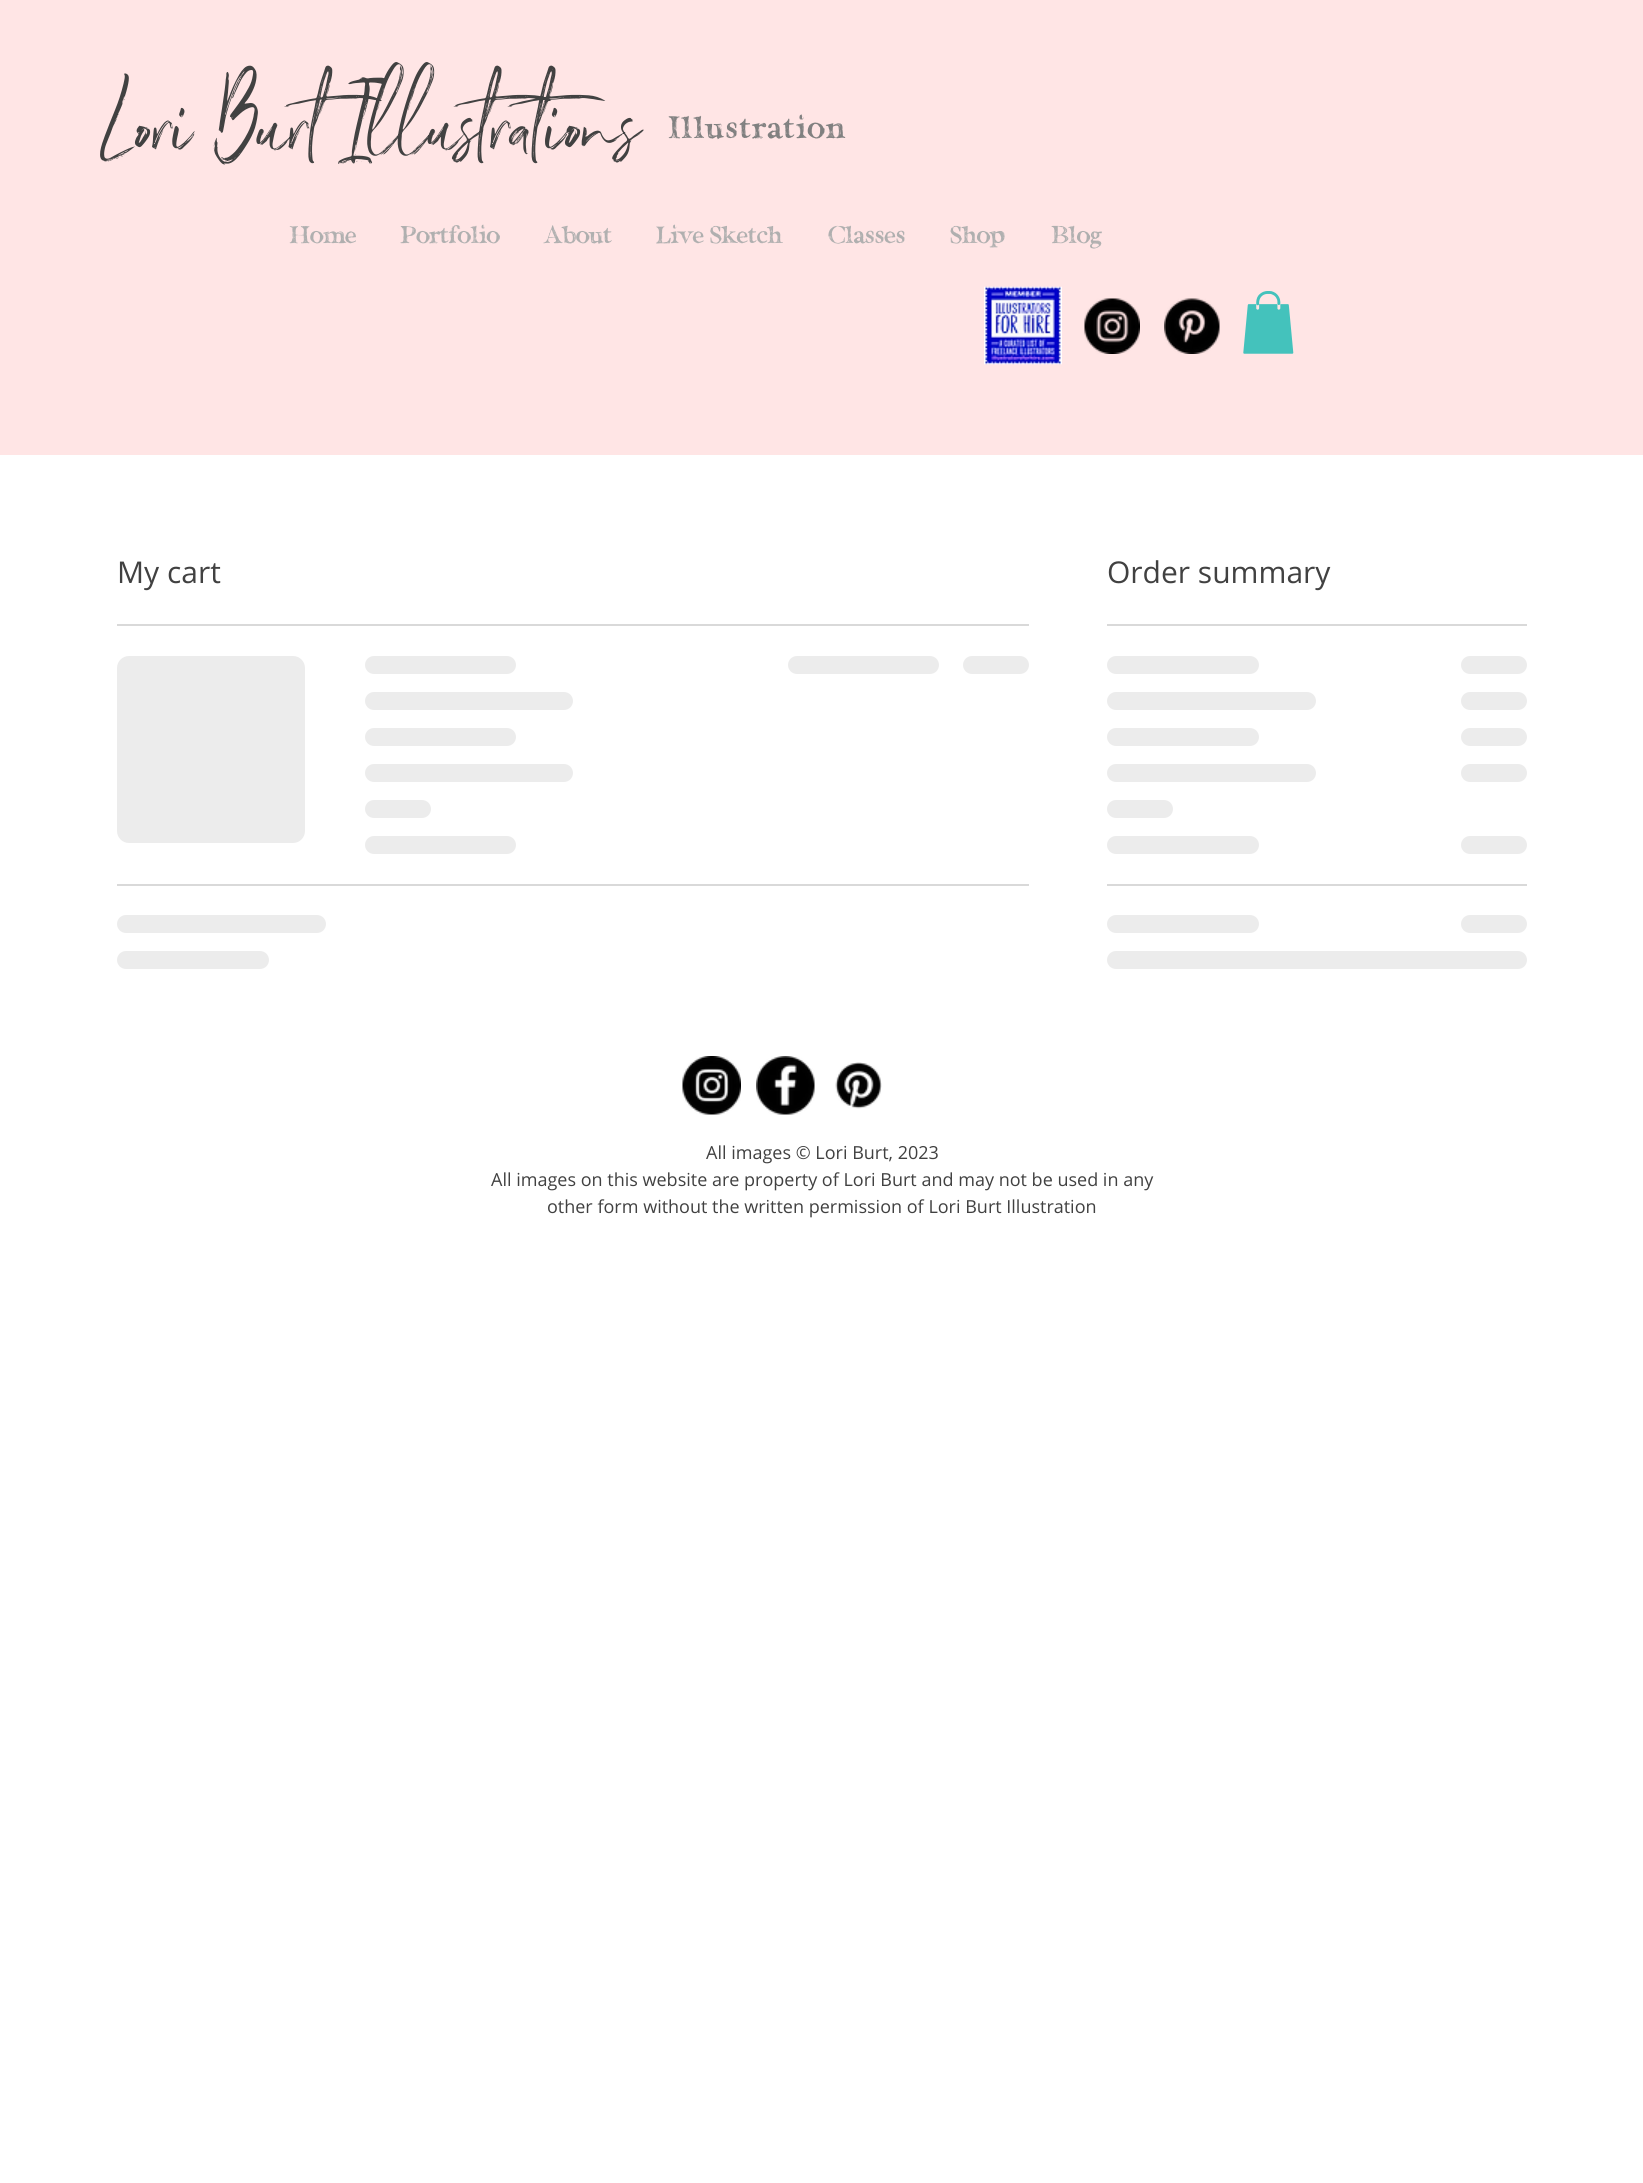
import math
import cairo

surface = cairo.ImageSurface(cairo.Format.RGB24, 1643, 2183)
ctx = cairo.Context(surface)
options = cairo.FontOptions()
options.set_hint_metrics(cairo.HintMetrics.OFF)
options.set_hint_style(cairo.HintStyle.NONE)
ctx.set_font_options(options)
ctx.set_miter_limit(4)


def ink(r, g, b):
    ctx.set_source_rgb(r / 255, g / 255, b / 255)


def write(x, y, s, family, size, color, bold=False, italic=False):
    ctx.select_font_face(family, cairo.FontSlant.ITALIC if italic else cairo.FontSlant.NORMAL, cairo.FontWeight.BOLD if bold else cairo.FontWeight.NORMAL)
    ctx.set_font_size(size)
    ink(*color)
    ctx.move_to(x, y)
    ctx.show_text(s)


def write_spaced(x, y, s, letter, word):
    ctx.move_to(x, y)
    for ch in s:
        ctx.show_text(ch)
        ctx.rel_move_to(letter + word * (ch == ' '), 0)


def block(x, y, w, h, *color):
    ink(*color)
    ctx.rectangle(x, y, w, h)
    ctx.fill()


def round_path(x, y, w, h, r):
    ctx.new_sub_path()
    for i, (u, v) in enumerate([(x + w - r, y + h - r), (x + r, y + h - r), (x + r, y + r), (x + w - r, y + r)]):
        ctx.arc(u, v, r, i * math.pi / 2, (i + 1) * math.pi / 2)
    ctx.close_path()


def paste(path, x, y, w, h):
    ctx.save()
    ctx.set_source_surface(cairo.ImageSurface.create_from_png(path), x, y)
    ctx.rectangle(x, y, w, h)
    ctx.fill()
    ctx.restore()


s1 = dict(family="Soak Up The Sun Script", size=130.5, color=(65, 65, 65))
s2 = dict(family="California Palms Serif", size=27, color=(175, 175, 175))
s3 = dict(family="Open Sans", size=30, color=(65, 65, 65))
s4 = dict(family="Open Sans", size=18, color=(65, 65, 65))

ink(255, 255, 255)
ctx.paint()
block(0, 0, 1643, 455, 255, 229, 229)
write(100, 171, "Lori Burt Illustrations", **s1)
ctx.select_font_face("California Palms Serif")
ctx.set_font_size(34.5)
ink(128, 128, 128)
write_spaced(668, 138, "Illustration", 1.75, 0)
write(290, 243, "Home", **s2)
write(401, 243, "Portfolio", **s2)
write(544, 243, "About", **s2)
write(656, 243, "Live Sketch", **s2)
write(828, 243, "Classes", **s2)
write(950, 243, "Shop", **s2)
write(1051, 243, "Blog", **s2)
paste("pic1.png", 984, 286, 78, 79)
paste("pic2.png", 1084, 298, 56, 56)
paste("pic3.png", 1164, 298, 56, 56)
paste("pic4.png", 1243, 291, 51, 63)
block(117, 624, 912, 2, 217, 217, 217)
write(117, 583, "My cart", **s3)
gradient = cairo.LinearGradient(117, 749, 867, 749)
gradient.add_color_stop_rgba(0.25, 0.925, 0.925, 0.925, 1)
gradient.add_color_stop_rgba(0.37, 0.851, 0.851, 0.851, 1)
gradient.add_color_stop_rgba(0.63, 0.925, 0.925, 0.925, 1)
ctx.set_source(gradient)
round_path(117, 656, 188, 187, 12)
ctx.fill()
gradient = cairo.LinearGradient(365, 665, 971, 665)
gradient.add_color_stop_rgba(0.25, 0.925, 0.925, 0.925, 1)
gradient.add_color_stop_rgba(0.37, 0.851, 0.851, 0.851, 1)
gradient.add_color_stop_rgba(0.63, 0.925, 0.925, 0.925, 1)
ctx.set_source(gradient)
round_path(365, 656, 151, 18, 9)
ctx.fill()
gradient = cairo.LinearGradient(365, 701, 1199, 701)
gradient.add_color_stop_rgba(0.25, 0.925, 0.925, 0.925, 1)
gradient.add_color_stop_rgba(0.37, 0.851, 0.851, 0.851, 1)
gradient.add_color_stop_rgba(0.63, 0.925, 0.925, 0.925, 1)
ctx.set_source(gradient)
round_path(365, 692, 208, 18, 9)
ctx.fill()
gradient = cairo.LinearGradient(365, 737, 971, 737)
gradient.add_color_stop_rgba(0.25, 0.925, 0.925, 0.925, 1)
gradient.add_color_stop_rgba(0.37, 0.851, 0.851, 0.851, 1)
gradient.add_color_stop_rgba(0.63, 0.925, 0.925, 0.925, 1)
ctx.set_source(gradient)
round_path(365, 728, 151, 18, 9)
ctx.fill()
gradient = cairo.LinearGradient(365, 773, 1199, 773)
gradient.add_color_stop_rgba(0.25, 0.925, 0.925, 0.925, 1)
gradient.add_color_stop_rgba(0.37, 0.851, 0.851, 0.851, 1)
gradient.add_color_stop_rgba(0.63, 0.925, 0.925, 0.925, 1)
ctx.set_source(gradient)
round_path(365, 764, 208, 18, 9)
ctx.fill()
gradient = cairo.LinearGradient(365, 809, 629, 809)
gradient.add_color_stop_rgba(0.25, 0.925, 0.925, 0.925, 1)
gradient.add_color_stop_rgba(0.37, 0.851, 0.851, 0.851, 1)
gradient.add_color_stop_rgba(0.63, 0.925, 0.925, 0.925, 1)
ctx.set_source(gradient)
round_path(365, 800, 66, 18, 9)
ctx.fill()
gradient = cairo.LinearGradient(365, 845, 971, 845)
gradient.add_color_stop_rgba(0.25, 0.925, 0.925, 0.925, 1)
gradient.add_color_stop_rgba(0.37, 0.851, 0.851, 0.851, 1)
gradient.add_color_stop_rgba(0.63, 0.925, 0.925, 0.925, 1)
ctx.set_source(gradient)
round_path(365, 836, 151, 18, 9)
ctx.fill()
gradient = cairo.LinearGradient(788, 665, 1394, 665)
gradient.add_color_stop_rgba(0.25, 0.925, 0.925, 0.925, 1)
gradient.add_color_stop_rgba(0.37, 0.851, 0.851, 0.851, 1)
gradient.add_color_stop_rgba(0.63, 0.925, 0.925, 0.925, 1)
ctx.set_source(gradient)
round_path(788, 656, 151, 18, 9)
ctx.fill()
gradient = cairo.LinearGradient(963, 665, 1227, 665)
gradient.add_color_stop_rgba(0.25, 0.925, 0.925, 0.925, 1)
gradient.add_color_stop_rgba(0.37, 0.851, 0.851, 0.851, 1)
gradient.add_color_stop_rgba(0.63, 0.925, 0.925, 0.925, 1)
ctx.set_source(gradient)
round_path(963, 656, 66, 18, 9)
ctx.fill()
block(117, 884, 912, 2, 217, 217, 217)
gradient = cairo.LinearGradient(117, 924, 951, 924)
gradient.add_color_stop_rgba(0.25, 0.925, 0.925, 0.925, 1)
gradient.add_color_stop_rgba(0.37, 0.851, 0.851, 0.851, 1)
gradient.add_color_stop_rgba(0.63, 0.925, 0.925, 0.925, 1)
ctx.set_source(gradient)
round_path(117, 915, 209, 18, 9)
ctx.fill()
gradient = cairo.LinearGradient(117, 960, 723, 960)
gradient.add_color_stop_rgba(0.25, 0.925, 0.925, 0.925, 1)
gradient.add_color_stop_rgba(0.37, 0.851, 0.851, 0.851, 1)
gradient.add_color_stop_rgba(0.63, 0.925, 0.925, 0.925, 1)
ctx.set_source(gradient)
round_path(117, 951, 152, 18, 9)
ctx.fill()
block(1107, 624, 420, 2, 217, 217, 217)
write(1107, 583, "Order summary", **s3)
gradient = cairo.LinearGradient(1107, 665, 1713, 665)
gradient.add_color_stop_rgba(0.25, 0.925, 0.925, 0.925, 1)
gradient.add_color_stop_rgba(0.37, 0.851, 0.851, 0.851, 1)
gradient.add_color_stop_rgba(0.63, 0.925, 0.925, 0.925, 1)
ctx.set_source(gradient)
round_path(1107, 656, 152, 18, 9)
ctx.fill()
gradient = cairo.LinearGradient(1461, 665, 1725, 665)
gradient.add_color_stop_rgba(0.25, 0.925, 0.925, 0.925, 1)
gradient.add_color_stop_rgba(0.37, 0.851, 0.851, 0.851, 1)
gradient.add_color_stop_rgba(0.63, 0.925, 0.925, 0.925, 1)
ctx.set_source(gradient)
round_path(1461, 656, 66, 18, 9)
ctx.fill()
gradient = cairo.LinearGradient(1107, 701, 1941, 701)
gradient.add_color_stop_rgba(0.25, 0.925, 0.925, 0.925, 1)
gradient.add_color_stop_rgba(0.37, 0.851, 0.851, 0.851, 1)
gradient.add_color_stop_rgba(0.63, 0.925, 0.925, 0.925, 1)
ctx.set_source(gradient)
round_path(1107, 692, 209, 18, 9)
ctx.fill()
gradient = cairo.LinearGradient(1461, 701, 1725, 701)
gradient.add_color_stop_rgba(0.25, 0.925, 0.925, 0.925, 1)
gradient.add_color_stop_rgba(0.37, 0.851, 0.851, 0.851, 1)
gradient.add_color_stop_rgba(0.63, 0.925, 0.925, 0.925, 1)
ctx.set_source(gradient)
round_path(1461, 692, 66, 18, 9)
ctx.fill()
gradient = cairo.LinearGradient(1107, 737, 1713, 737)
gradient.add_color_stop_rgba(0.25, 0.925, 0.925, 0.925, 1)
gradient.add_color_stop_rgba(0.37, 0.851, 0.851, 0.851, 1)
gradient.add_color_stop_rgba(0.63, 0.925, 0.925, 0.925, 1)
ctx.set_source(gradient)
round_path(1107, 728, 152, 18, 9)
ctx.fill()
gradient = cairo.LinearGradient(1461, 737, 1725, 737)
gradient.add_color_stop_rgba(0.25, 0.925, 0.925, 0.925, 1)
gradient.add_color_stop_rgba(0.37, 0.851, 0.851, 0.851, 1)
gradient.add_color_stop_rgba(0.63, 0.925, 0.925, 0.925, 1)
ctx.set_source(gradient)
round_path(1461, 728, 66, 18, 9)
ctx.fill()
gradient = cairo.LinearGradient(1107, 773, 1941, 773)
gradient.add_color_stop_rgba(0.25, 0.925, 0.925, 0.925, 1)
gradient.add_color_stop_rgba(0.37, 0.851, 0.851, 0.851, 1)
gradient.add_color_stop_rgba(0.63, 0.925, 0.925, 0.925, 1)
ctx.set_source(gradient)
round_path(1107, 764, 209, 18, 9)
ctx.fill()
gradient = cairo.LinearGradient(1461, 773, 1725, 773)
gradient.add_color_stop_rgba(0.25, 0.925, 0.925, 0.925, 1)
gradient.add_color_stop_rgba(0.37, 0.851, 0.851, 0.851, 1)
gradient.add_color_stop_rgba(0.63, 0.925, 0.925, 0.925, 1)
ctx.set_source(gradient)
round_path(1461, 764, 66, 18, 9)
ctx.fill()
gradient = cairo.LinearGradient(1107, 809, 1371, 809)
gradient.add_color_stop_rgba(0.25, 0.925, 0.925, 0.925, 1)
gradient.add_color_stop_rgba(0.37, 0.851, 0.851, 0.851, 1)
gradient.add_color_stop_rgba(0.63, 0.925, 0.925, 0.925, 1)
ctx.set_source(gradient)
round_path(1107, 800, 66, 18, 9)
ctx.fill()
gradient = cairo.LinearGradient(1107, 845, 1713, 845)
gradient.add_color_stop_rgba(0.25, 0.925, 0.925, 0.925, 1)
gradient.add_color_stop_rgba(0.37, 0.851, 0.851, 0.851, 1)
gradient.add_color_stop_rgba(0.63, 0.925, 0.925, 0.925, 1)
ctx.set_source(gradient)
round_path(1107, 836, 152, 18, 9)
ctx.fill()
gradient = cairo.LinearGradient(1461, 845, 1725, 845)
gradient.add_color_stop_rgba(0.25, 0.925, 0.925, 0.925, 1)
gradient.add_color_stop_rgba(0.37, 0.851, 0.851, 0.851, 1)
gradient.add_color_stop_rgba(0.63, 0.925, 0.925, 0.925, 1)
ctx.set_source(gradient)
round_path(1461, 836, 66, 18, 9)
ctx.fill()
block(1107, 884, 420, 2, 217, 217, 217)
gradient = cairo.LinearGradient(1107, 924, 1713, 924)
gradient.add_color_stop_rgba(0.25, 0.925, 0.925, 0.925, 1)
gradient.add_color_stop_rgba(0.37, 0.851, 0.851, 0.851, 1)
gradient.add_color_stop_rgba(0.63, 0.925, 0.925, 0.925, 1)
ctx.set_source(gradient)
round_path(1107, 915, 152, 18, 9)
ctx.fill()
gradient = cairo.LinearGradient(1461, 924, 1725, 924)
gradient.add_color_stop_rgba(0.25, 0.925, 0.925, 0.925, 1)
gradient.add_color_stop_rgba(0.37, 0.851, 0.851, 0.851, 1)
gradient.add_color_stop_rgba(0.63, 0.925, 0.925, 0.925, 1)
ctx.set_source(gradient)
round_path(1461, 915, 66, 18, 9)
ctx.fill()
gradient = cairo.LinearGradient(1107, 960, 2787, 960)
gradient.add_color_stop_rgba(0.25, 0.925, 0.925, 0.925, 1)
gradient.add_color_stop_rgba(0.37, 0.851, 0.851, 0.851, 1)
gradient.add_color_stop_rgba(0.63, 0.925, 0.925, 0.925, 1)
ctx.set_source(gradient)
round_path(1107, 951, 420, 18, 9)
ctx.fill()
paste("pic5.png", 682, 1056, 59, 59)
paste("pic6.png", 756, 1056, 59, 59)
paste("pic7.png", 835, 1062, 47, 47)
write(706, 1159, "All images © Lori Burt, 2023", **s4)
write(491, 1186, "All images on this website are property of Lori Burt and may not be used in any", **s4)
write(547, 1213, "other form without the written permission of Lori Burt Illustration", **s4)
surface.write_to_png("screenshot.png")
